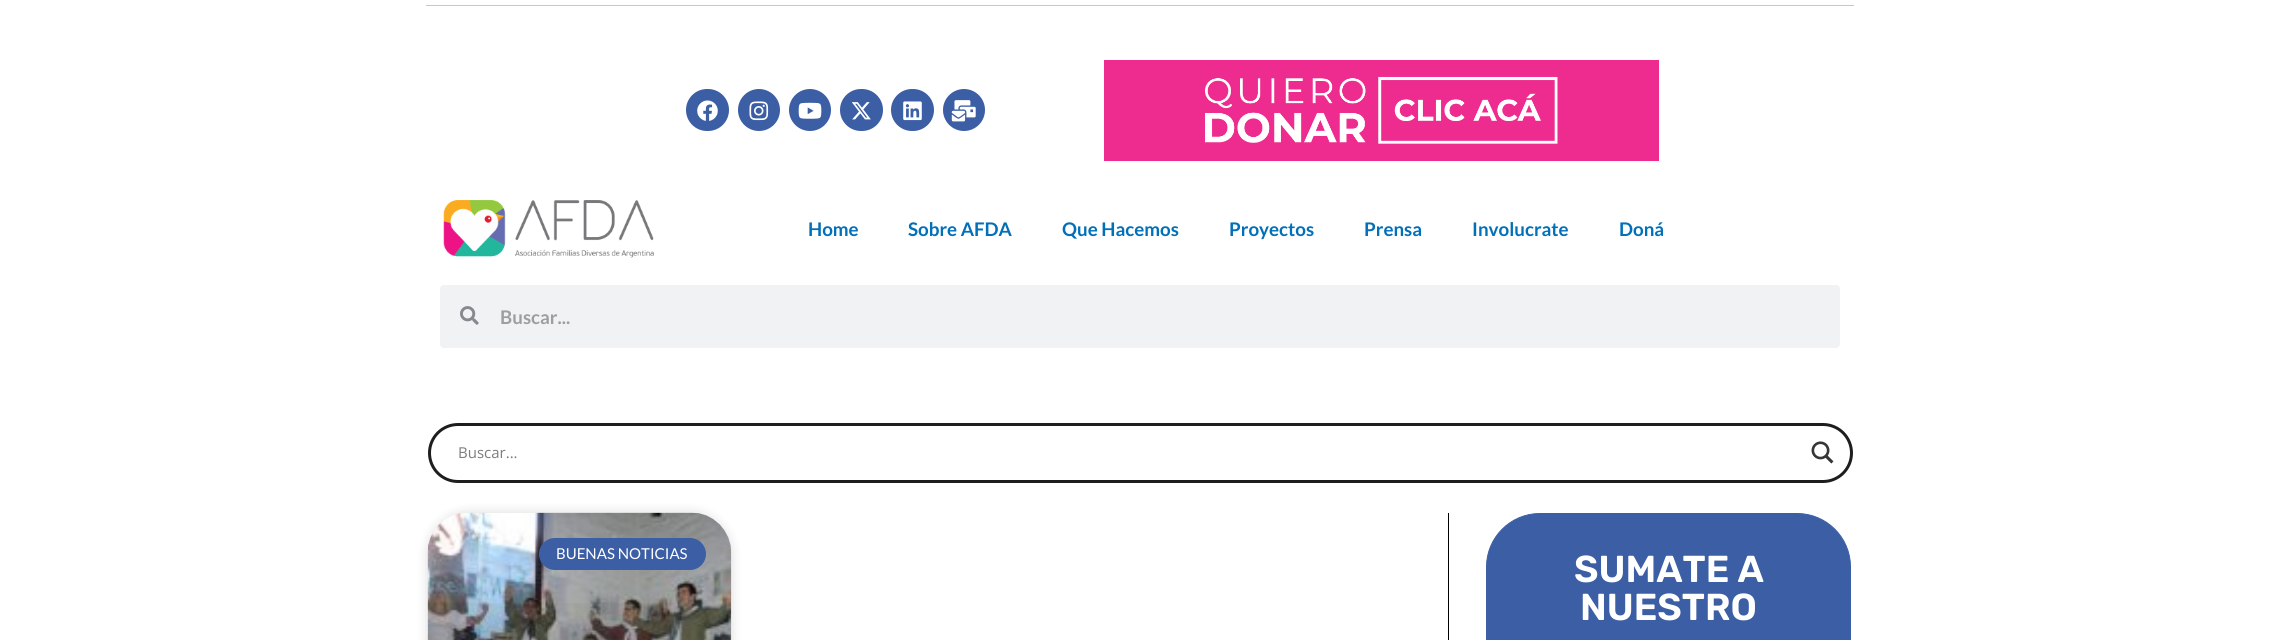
import math
import cairo

surface = cairo.ImageSurface(cairo.Format.RGB24, 2278, 640)
ctx = cairo.Context(surface)
options = cairo.FontOptions()
options.set_hint_metrics(cairo.HintMetrics.OFF)
options.set_hint_style(cairo.HintStyle.NONE)
ctx.set_font_options(options)
ctx.set_miter_limit(4)


def ink(r, g, b):
    ctx.set_source_rgb(r / 255, g / 255, b / 255)


def write(x, y, s, family, size, color, bold=False, italic=False):
    ctx.select_font_face(family, cairo.FontSlant.ITALIC if italic else cairo.FontSlant.NORMAL, cairo.FontWeight.BOLD if bold else cairo.FontWeight.NORMAL)
    ctx.set_font_size(size)
    ink(*color)
    ctx.move_to(x, y)
    ctx.show_text(s)


def block(x, y, w, h, *color):
    ink(*color)
    ctx.rectangle(x, y, w, h)
    ctx.fill()


def round_path(x, y, w, h, r):
    ctx.new_sub_path()
    for i, (u, v) in enumerate([(x + w - r, y + h - r), (x + r, y + h - r), (x + r, y + r), (x + w - r, y + r)]):
        ctx.arc(u, v, r, i * math.pi / 2, (i + 1) * math.pi / 2)
    ctx.close_path()


def blur_box(x, y, w, h, r, blur, alpha):
    ctx.push_group_with_content(cairo.Content.ALPHA)
    ctx.set_operator(cairo.Operator.SOURCE)
    for i in range(15, -16, -2):
        e = blur * i / 6
        if min(w, h) + 2 * e > 0:
            ctx.set_source_rgba(0, 0, 0, alpha * math.erfc((i - 1) / 8.5) / 2)
            round_path(x - e, y - e, w + 2 * e, h + 2 * e, max(0, min(r + e + blur * .6, min(w, h) / 2 + e)))
            ctx.fill()
    ctx.mask(ctx.pop_group())


def paste(path, x, y, w, h):
    ctx.save()
    ctx.set_source_surface(cairo.ImageSurface.create_from_png(path), x, y)
    ctx.rectangle(x, y, w, h)
    ctx.fill()
    ctx.restore()


s1 = dict(family="Lato", size=18.75, color=(1, 112, 185), bold=True)
s2 = dict(family="Lato", size=18.75, color=(158, 158, 158), bold=True)
s3 = dict(family="Open Sans", size=15, color=(125, 125, 125))
s4 = dict(family="Lato", size=15, color=(255, 255, 255))
s5 = dict(family="Rubik SemiBold", size=37.5, color=(255, 255, 255))

ink(255, 255, 255)
ctx.paint()
block(426, 5, 1428, 1, 249, 188, 124)
ink(59, 94, 164)
round_path(686, 89, 43, 42, 21)
ctx.fill()
paste("pic1.png", 697, 100, 21, 21)
ctx.arc(759, 110, 21, 0, 2 * math.pi)
ctx.fill()
paste("pic2.png", 749, 101, 20, 20)
ctx.arc(810, 110, 21, 0, 2 * math.pi)
ctx.fill()
paste("pic3.png", 798, 102, 24, 17)
round_path(840, 89, 43, 42, 21)
ctx.fill()
paste("pic4.png", 851, 102, 20, 18)
round_path(891, 89, 43, 42, 21)
ctx.fill()
paste("pic5.png", 903, 101, 19, 20)
ctx.arc(964, 110, 21, 0, 2 * math.pi)
ctx.fill()
paste("pic6.png", 951, 100, 25, 22)
block(1104, 60, 555, 101, 238, 43, 143)
paste("pic7.png", 1205, 76, 353, 68)
paste("pic8.png", 443, 200, 211, 58)
write(808, 236, "Home", **s1)
write(908, 236, "Sobre AFDA", **s1)
write(1062, 236, "Que Hacemos", **s1)
write(1229, 236, "Proyectos", **s1)
write(1364, 236, "Prensa", **s1)
write(1472, 236, "Involucrate", **s1)
write(1619, 236, "Doná", **s1)
ink(241, 242, 243)
round_path(440, 285, 1400, 63, 4)
ctx.fill()
paste("pic9.png", 460, 306, 19, 19)
write(500, 324, "Buscar...", **s2)
round_path(429.5, 424.5, 1422, 57, 28.5)
ink(30, 30, 30)
ctx.set_line_width(3)
ctx.stroke()
write(458, 458, "Buscar...", **s3)
paste("pic10.png", 1811, 441, 23, 23)
block(1448, 513, 1, 127, 0, 0, 0)
ink(0, 0, 0)
blur_box(428, 513, 303, 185, 40, 6, 0.15)
paste("pic11.png", 427, 512, 305, 128)
gradient = cairo.LinearGradient(579, 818, 579, 513)
gradient.add_color_stop_rgba(0, 0, 0, 0, 0.35)
gradient.add_color_stop_rgba(0.75, 0, 0, 0, 0)
ctx.set_source(gradient)
ctx.rectangle(428, 603, 303, 37)
ctx.fill()
ink(59, 94, 164)
round_path(539, 538, 167, 32, 16)
ctx.fill()
write(556, 559, "BUENAS NOTICIAS", **s4)
ink(59, 94, 164)
round_path(1486.5, 513.5, 364, 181, 53.5)
ctx.fill_preserve()
ctx.set_line_width(1)
ctx.stroke()
write(1574, 582, "SUMATE A", **s5)
write(1580, 620, "NUESTRO", **s5)
surface.write_to_png("screenshot.png")
